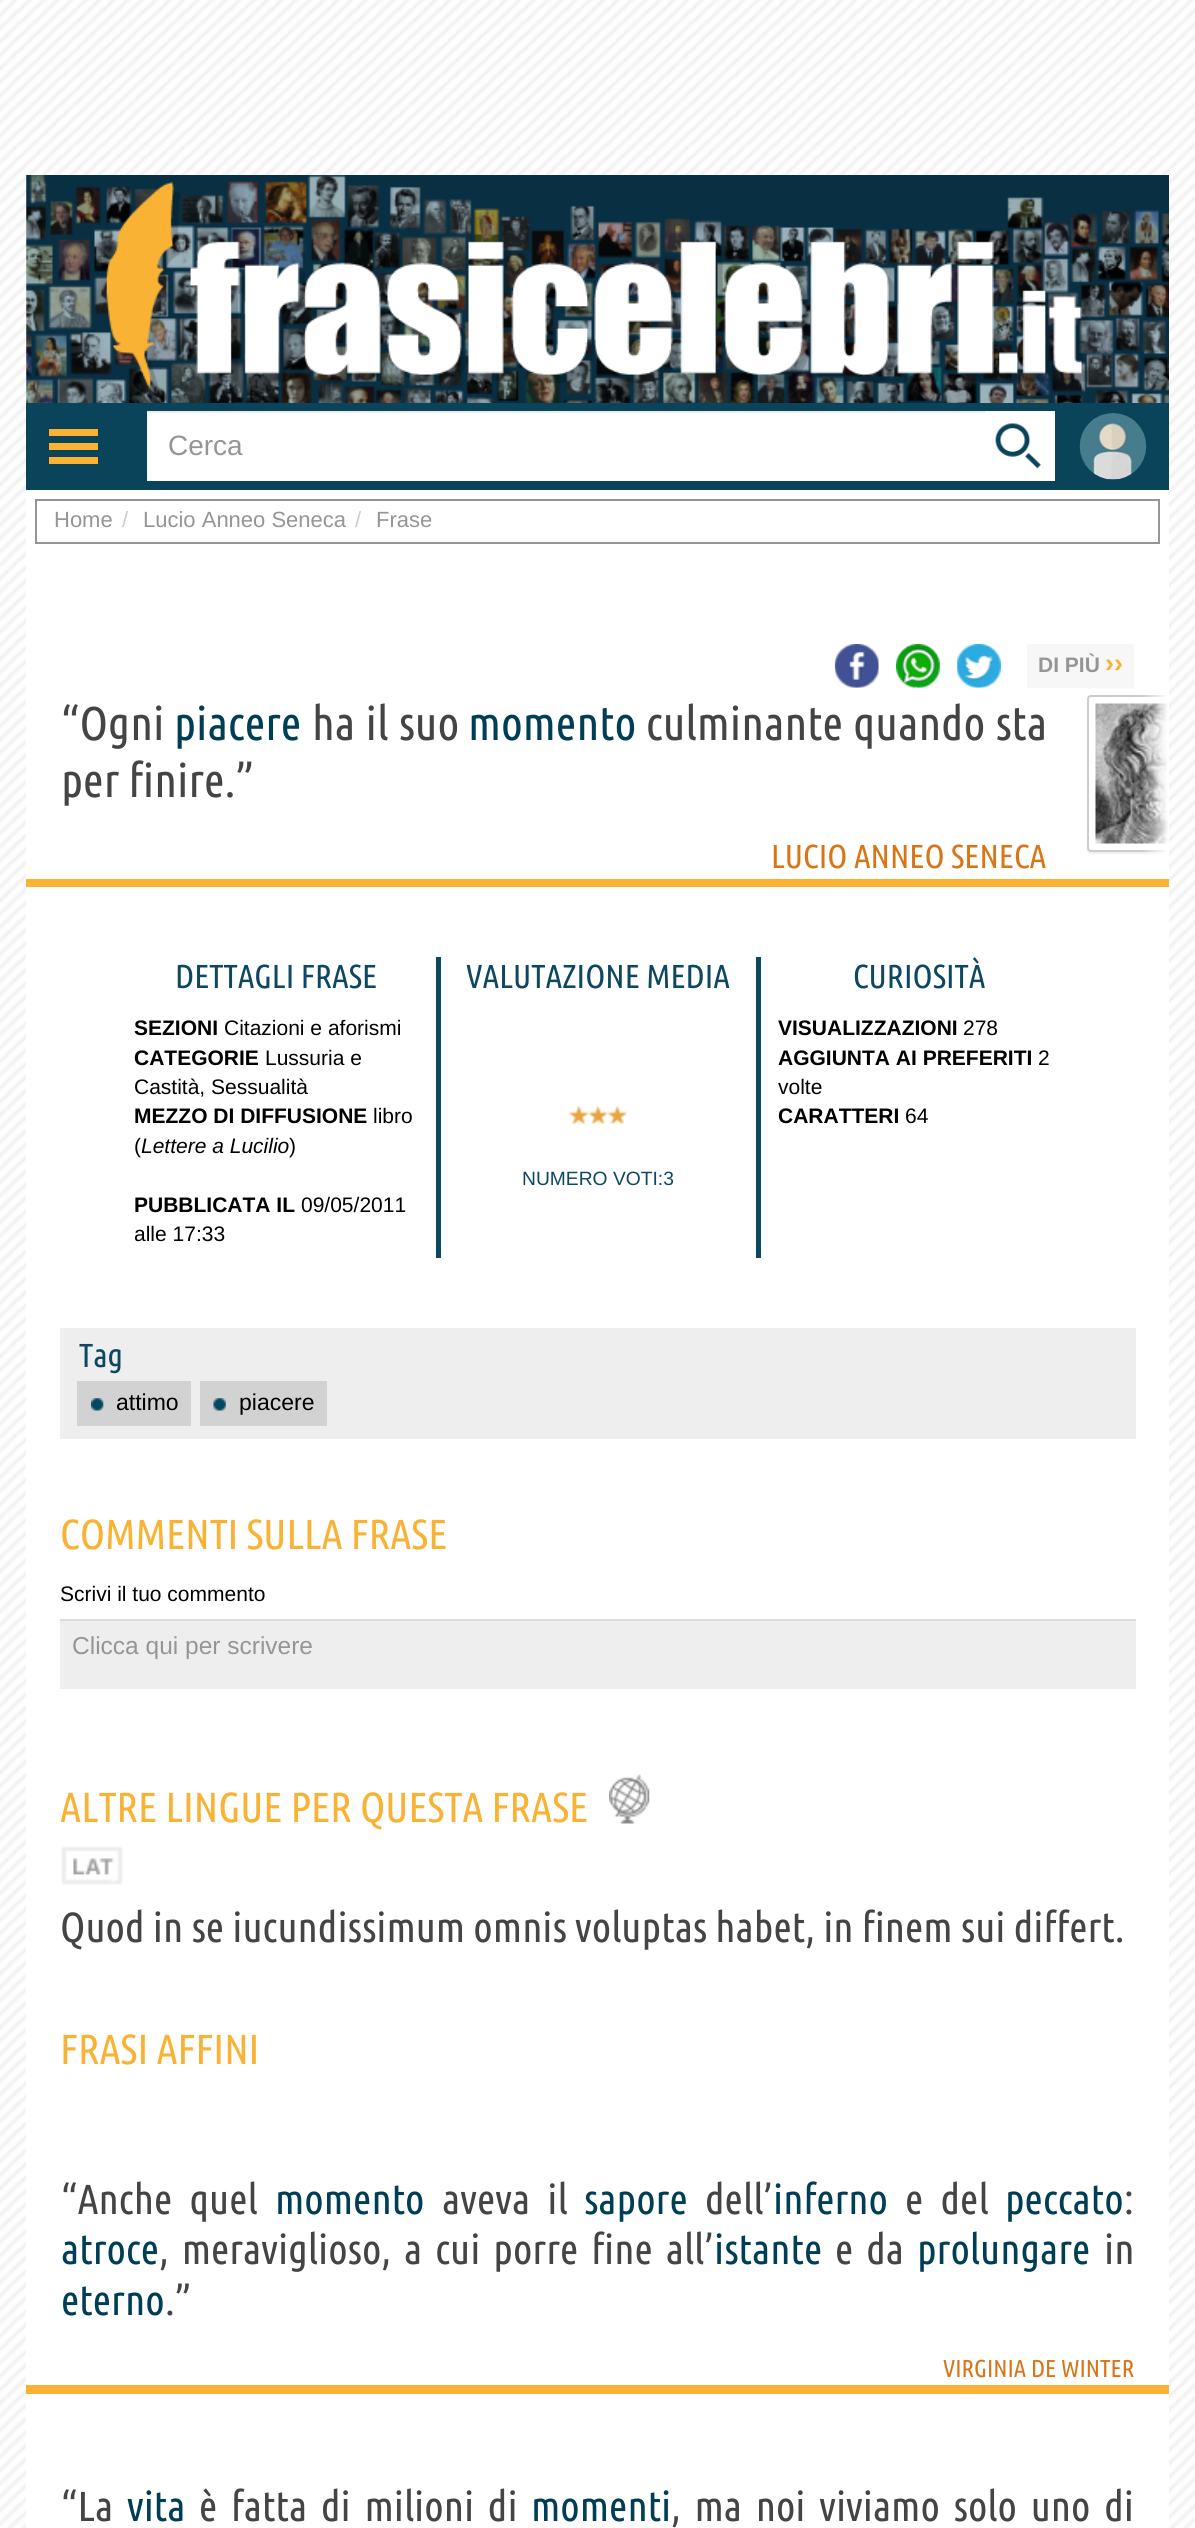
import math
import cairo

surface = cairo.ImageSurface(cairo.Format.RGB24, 1195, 2528)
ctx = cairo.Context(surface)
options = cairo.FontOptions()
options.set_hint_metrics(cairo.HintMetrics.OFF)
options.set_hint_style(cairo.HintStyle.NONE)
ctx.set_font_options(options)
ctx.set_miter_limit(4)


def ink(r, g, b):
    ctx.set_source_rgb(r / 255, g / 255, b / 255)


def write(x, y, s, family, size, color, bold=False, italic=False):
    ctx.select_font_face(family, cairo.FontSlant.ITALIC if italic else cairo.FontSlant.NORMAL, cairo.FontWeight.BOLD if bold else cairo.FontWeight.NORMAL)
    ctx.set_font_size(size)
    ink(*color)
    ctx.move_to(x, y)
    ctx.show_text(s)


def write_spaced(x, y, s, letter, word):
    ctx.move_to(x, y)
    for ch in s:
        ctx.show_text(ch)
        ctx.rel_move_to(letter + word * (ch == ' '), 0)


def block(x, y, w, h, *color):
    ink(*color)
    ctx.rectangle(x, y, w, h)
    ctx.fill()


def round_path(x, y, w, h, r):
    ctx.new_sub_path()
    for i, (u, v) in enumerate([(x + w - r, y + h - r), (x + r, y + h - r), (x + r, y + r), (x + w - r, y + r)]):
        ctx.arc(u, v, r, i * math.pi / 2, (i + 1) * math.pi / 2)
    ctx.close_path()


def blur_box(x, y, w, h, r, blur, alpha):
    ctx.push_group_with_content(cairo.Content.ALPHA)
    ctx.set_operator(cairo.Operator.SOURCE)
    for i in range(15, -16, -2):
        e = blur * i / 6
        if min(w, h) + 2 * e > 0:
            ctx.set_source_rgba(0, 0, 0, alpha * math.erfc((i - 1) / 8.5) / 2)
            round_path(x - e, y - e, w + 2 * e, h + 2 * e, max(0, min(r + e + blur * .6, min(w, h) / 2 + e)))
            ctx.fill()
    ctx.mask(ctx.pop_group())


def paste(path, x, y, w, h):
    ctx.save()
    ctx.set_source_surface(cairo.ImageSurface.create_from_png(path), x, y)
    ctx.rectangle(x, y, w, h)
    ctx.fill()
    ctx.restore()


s1 = dict(family="Liberation Sans", size=28, color=(149, 149, 149))
s2 = dict(family="Liberation Sans", size=22, color=(149, 149, 149))
s3 = dict(family="Liberation Sans", size=22, color=(204, 204, 204))
s4 = dict(family="Liberation Sans", size=21, color=(149, 149, 149), bold=True)
s5 = dict(family="Liberation Sans", size=27, color=(249, 178, 51), bold=True)
s6 = dict(family="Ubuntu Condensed", size=47.25, color=(68, 68, 68))
s7 = dict(family="Ubuntu Condensed", size=47.25, color=(0, 62, 85))
s8 = dict(family="Ubuntu Condensed", size=33.25, color=(218, 117, 23))
s9 = dict(family="Ubuntu Condensed", size=33.25, color=(13, 71, 97))
s10 = dict(family="Liberation Sans", size=21, color=(0, 0, 0), bold=True)
s11 = dict(family="Liberation Sans", size=21, color=(0, 0, 0))
s12 = dict(family="Liberation Sans", size=21, color=(0, 0, 0), italic=True)
s13 = dict(family="Liberation Sans", size=19.25, color=(13, 71, 97))
s14 = dict(family="Liberation Sans", size=23, color=(0, 0, 0))
s15 = dict(family="Ubuntu Condensed", size=42, color=(249, 178, 51))
s16 = dict(family="Liberation Sans", size=24.5, color=(149, 149, 149))
s17 = dict(family="Ubuntu Condensed", size=42, color=(68, 68, 68))
s18 = dict(family="Ubuntu Condensed", size=42, color=(0, 62, 85))
s19 = dict(family="Ubuntu Condensed", size=24.5, color=(218, 117, 23))

ink(255, 255, 255)
ctx.paint()
paste("pic1.png", 0, 0, 1195, 2528)
paste("pic2.png", 26, 175, 1143, 228)
paste("pic3.png", 106, 182, 983, 212)
block(26, 403, 1143, 87, 10, 68, 91)
block(49, 429, 49, 7, 249, 178, 51)
block(49, 443, 49, 7, 249, 178, 51)
block(49, 457, 49, 7, 249, 178, 51)
block(147, 413, 838, 68, 255, 255, 255)
block(147, 411, 838, 2, 236, 236, 236)
write(168, 455, "Cerca", **s1)
block(985, 411, 70, 70, 255, 255, 255)
paste("pic4.png", 995, 423, 46, 46)
paste("pic5.png", 1079, 413, 68, 67)
block(26, 490, 1143, 2038, 255, 255, 255)
ctx.rectangle(36, 500, 1123, 43)
ink(149, 149, 149)
ctx.stroke()
write(54, 527, "Home", **s2)
write(122, 527, "/", **s3)
write(143, 527, "Lucio Anneo Seneca", **s2)
write(355, 527, "/", **s3)
write(376, 527, "Frase", **s2)
block(26, 879, 1143, 8, 249, 178, 51)
paste("pic6.png", 834, 644, 45, 44)
paste("pic7.png", 896, 644, 44, 44)
paste("pic8.png", 957, 644, 44, 44)
block(1027, 644, 107, 44, 247, 247, 247)
write(1038, 672, "DI PIÙ", **s4)
write(1105, 672, "››", **s5)
ctx.save()
ctx.rectangle(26, 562, 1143, 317)
ctx.clip()
ctx.set_fill_rule(cairo.FillRule.EVEN_ODD)
ctx.new_path()
ctx.move_to(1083, 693)
ctx.line_to(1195, 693)
ctx.line_to(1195, 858)
ctx.line_to(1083, 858)
ctx.close_path()
ctx.move_to(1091, 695)
ctx.line_to(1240, 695)
ctx.curve_to(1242, 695, 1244, 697, 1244, 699)
ctx.line_to(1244, 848)
ctx.curve_to(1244, 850, 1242, 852, 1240, 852)
ctx.line_to(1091, 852)
ctx.curve_to(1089, 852, 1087, 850, 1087, 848)
ctx.line_to(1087, 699)
ctx.curve_to(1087, 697, 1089, 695, 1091, 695)
ctx.close_path()
ctx.clip()
ink(0, 0, 0)
blur_box(1087, 697, 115, 157, 4, 1, 0.07)
ctx.restore()
ctx.save()
ctx.rectangle(26, 562, 1143, 317)
ctx.clip()
round_path(1088, 696, 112, 155, 3)
ink(204, 204, 204)
ctx.stroke()
ctx.restore()
paste("pic9.png", 1095, 703, 73, 141)
write(61, 740, "“Ogni", **s6)
write(174, 740, "piacere", **s7)
ink(68, 68, 68)
write_spaced(312, 740, "ha il suo", 0, 1)
write(468, 740, "momento", **s7)
ink(68, 68, 68)
write_spaced(646, 740, "culminante quando sta", 0, 1)
write(61, 797, "per finire.”", **s6)
write(771, 868, "LUCIO ANNEO SENECA", **s8)
paste("pic10.png", 1143, 695, 26, 160)
block(436, 957, 5, 301, 13, 71, 97)
write(175, 988, "DETTAGLI FRASE", **s9)
write(134, 1035, "SEZIONI", **s10)
write(224, 1035, "Citazioni e aforismi", **s11)
write(134, 1065, "CATEGORIE", **s10)
write(265, 1065, "Lussuria e", **s11)
write(134, 1094, "Castità, Sessualità", **s11)
write(134, 1123, "MEZZO DI DIFFUSIONE", **s10)
write(373, 1123, "libro", **s11)
write(134, 1153, "(", **s11)
write(141, 1153, "Lettere a Lucilio", **s12)
write(289, 1153, ")", **s11)
write(134, 1212, "PUBBLICATA IL", **s10)
write(301, 1212, "09/05/2011", **s11)
write(134, 1241, "alle 17:33", **s11)
write(466, 988, "VALUTAZIONE MEDIA", **s9)
paste("pic11.png", 568, 1106, 20, 18)
paste("pic12.png", 588, 1106, 20, 18)
paste("pic13.png", 607, 1106, 20, 18)
write(522, 1185, "NUMERO VOTI:3", **s13)
block(756, 957, 5, 301, 13, 71, 97)
write(853, 988, "CURIOSITÀ", **s9)
write(778, 1035, "VISUALIZZAZIONI", **s10)
write(963, 1035, "278", **s11)
write(778, 1065, "AGGIUNTA AI PREFERITI", **s10)
write(1038, 1065, "2", **s11)
write(778, 1094, "volte", **s11)
write(778, 1123, "CARATTERI", **s10)
write(905, 1123, "64", **s11)
block(60, 1328, 1076, 111, 238, 238, 238)
write(79, 1367, "Tag", **s9)
block(77, 1381, 114, 45, 210, 210, 210)
paste("pic14.png", 91, 1398, 13, 13)
write(116, 1410, "attimo", **s14)
block(200, 1381, 127, 45, 210, 210, 210)
paste("pic15.png", 213, 1398, 13, 13)
write(239, 1410, "piacere", **s14)
write(60, 1549, "COMMENTI SULLA FRASE", **s15)
write(60, 1601, "Scrivi il tuo commento", **s11)
block(60, 1621, 1076, 68, 238, 238, 238)
block(60, 1619, 1076, 2, 220, 220, 220)
write(72, 1654, "Clicca qui per scrivere", **s16)
write(60, 1822, "ALTRE LINGUE PER QUESTA FRASE", **s15)
paste("pic16.png", 609, 1774, 41, 50)
paste("pic17.png", 61, 1846, 62, 39)
write(60, 1942, "Quod in se iucundissimum omnis voluptas habet, in finem sui differt.", **s17)
write(60, 2064, "FRASI AFFINI", **s15)
block(26, 2385, 1143, 9, 249, 178, 51)
ink(68, 68, 68)
write_spaced(61, 2214, "“Anche quel", 0, 9)
write(275, 2214, "momento", **s18)
ink(68, 68, 68)
write_spaced(442, 2214, "aveva il", 0, 9)
write(584, 2214, "sapore", **s18)
write(705, 2214, "dell’", **s17)
write(773, 2214, "inferno", **s18)
ink(68, 68, 68)
write_spaced(905, 2214, "e del", 0, 9)
write(1005, 2214, "peccato", **s18)
write(1124, 2214, ":", **s17)
write(61, 2264, "atroce", **s18)
ink(68, 68, 68)
write_spaced(159, 2264, ", meraviglioso, a cui porre fine all’", 0, 4.75)
write(714, 2264, "istante", **s18)
ink(68, 68, 68)
write_spaced(835, 2264, "e da", 0, 4.75)
write(917, 2264, "prolungare", **s18)
write(1104, 2264, "in", **s17)
write(61, 2315, "eterno", **s18)
write(165, 2315, ".”", **s17)
write(943, 2377, "VIRGINIA DE WINTER", **s19)
write(61, 2521, "“La", **s17)
write(127, 2521, "vita", **s18)
ink(68, 68, 68)
write_spaced(199, 2521, "è fatta di milioni di", 0, 5.5)
write(531, 2521, "momenti", **s18)
ink(68, 68, 68)
write_spaced(671, 2521, ", ma noi viviamo solo uno di", 0, 5.5)
surface.write_to_png("screenshot.png")
